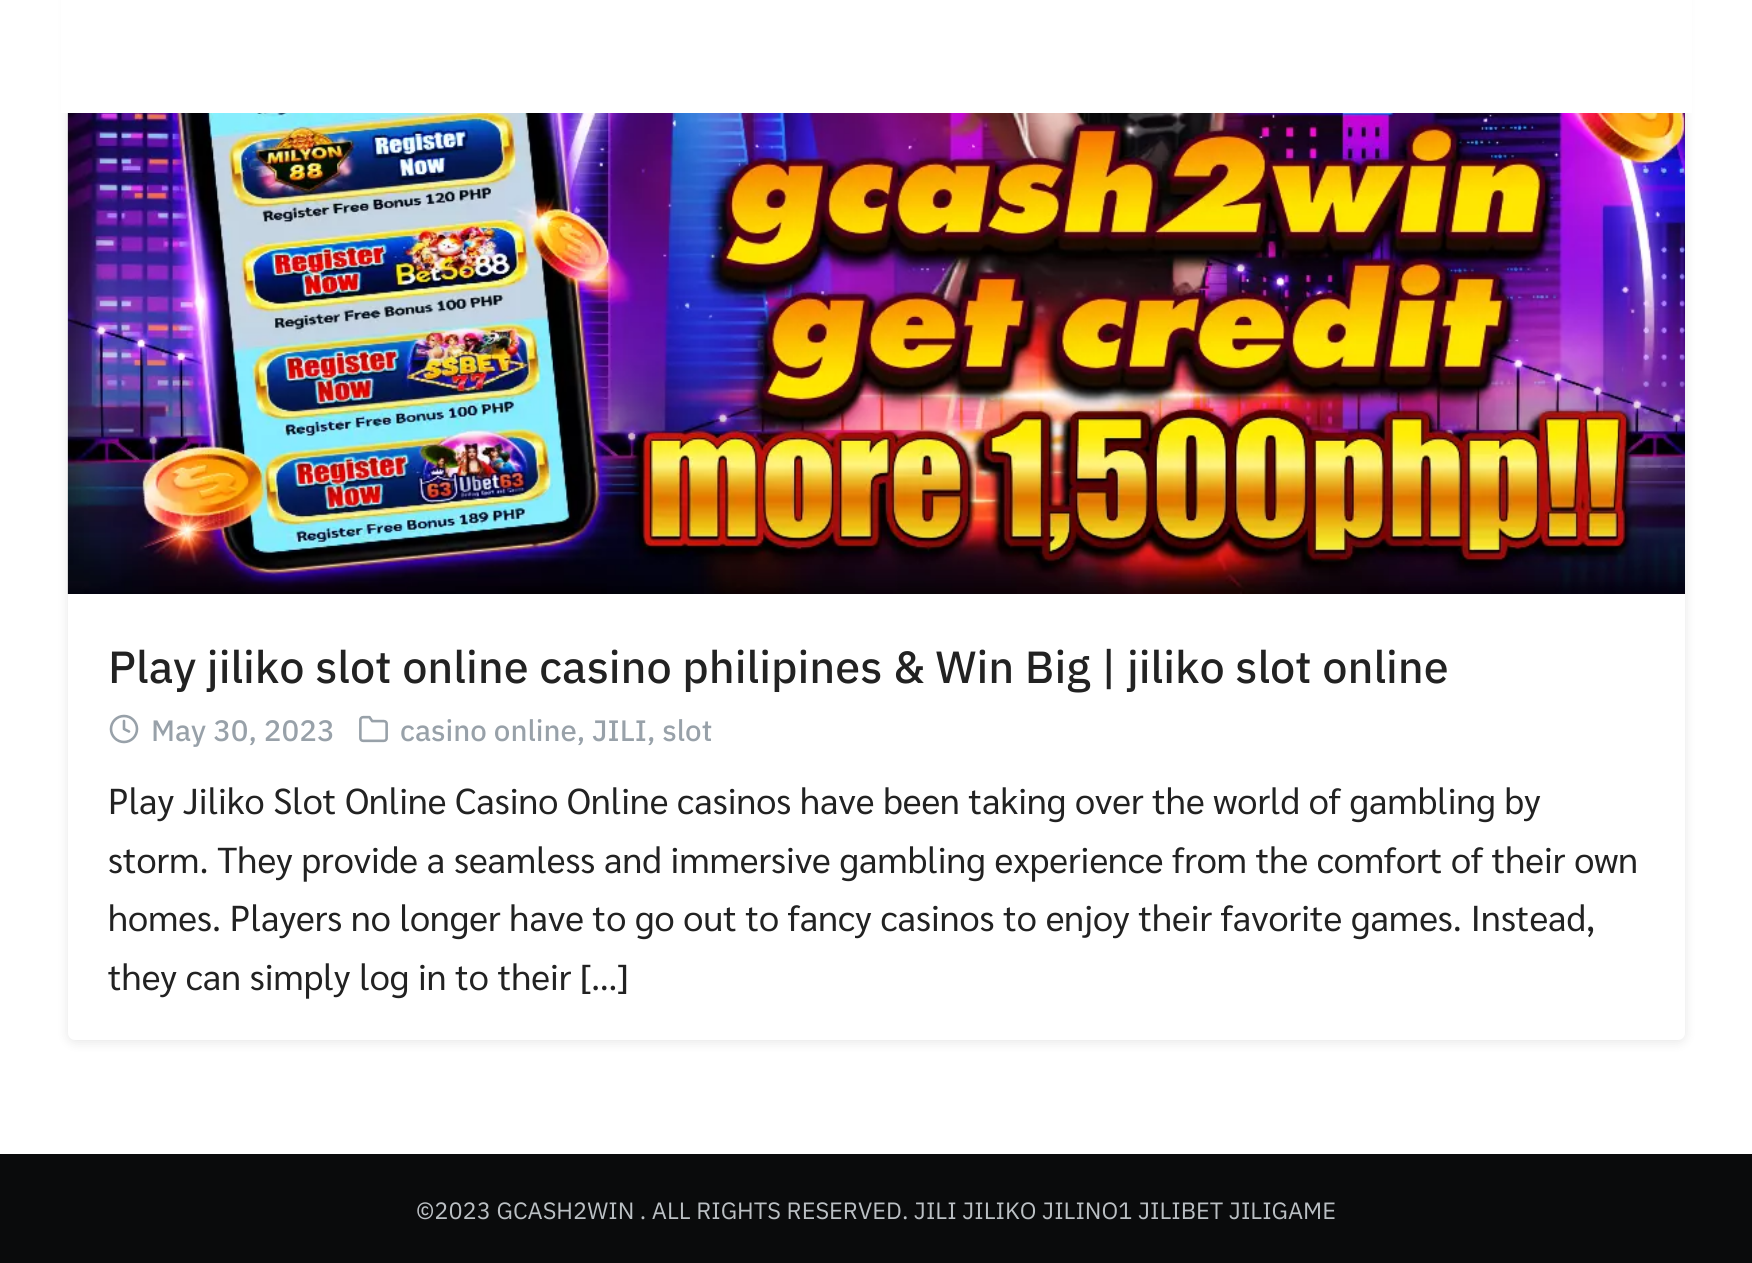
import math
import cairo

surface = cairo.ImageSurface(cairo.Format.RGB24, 1752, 1263)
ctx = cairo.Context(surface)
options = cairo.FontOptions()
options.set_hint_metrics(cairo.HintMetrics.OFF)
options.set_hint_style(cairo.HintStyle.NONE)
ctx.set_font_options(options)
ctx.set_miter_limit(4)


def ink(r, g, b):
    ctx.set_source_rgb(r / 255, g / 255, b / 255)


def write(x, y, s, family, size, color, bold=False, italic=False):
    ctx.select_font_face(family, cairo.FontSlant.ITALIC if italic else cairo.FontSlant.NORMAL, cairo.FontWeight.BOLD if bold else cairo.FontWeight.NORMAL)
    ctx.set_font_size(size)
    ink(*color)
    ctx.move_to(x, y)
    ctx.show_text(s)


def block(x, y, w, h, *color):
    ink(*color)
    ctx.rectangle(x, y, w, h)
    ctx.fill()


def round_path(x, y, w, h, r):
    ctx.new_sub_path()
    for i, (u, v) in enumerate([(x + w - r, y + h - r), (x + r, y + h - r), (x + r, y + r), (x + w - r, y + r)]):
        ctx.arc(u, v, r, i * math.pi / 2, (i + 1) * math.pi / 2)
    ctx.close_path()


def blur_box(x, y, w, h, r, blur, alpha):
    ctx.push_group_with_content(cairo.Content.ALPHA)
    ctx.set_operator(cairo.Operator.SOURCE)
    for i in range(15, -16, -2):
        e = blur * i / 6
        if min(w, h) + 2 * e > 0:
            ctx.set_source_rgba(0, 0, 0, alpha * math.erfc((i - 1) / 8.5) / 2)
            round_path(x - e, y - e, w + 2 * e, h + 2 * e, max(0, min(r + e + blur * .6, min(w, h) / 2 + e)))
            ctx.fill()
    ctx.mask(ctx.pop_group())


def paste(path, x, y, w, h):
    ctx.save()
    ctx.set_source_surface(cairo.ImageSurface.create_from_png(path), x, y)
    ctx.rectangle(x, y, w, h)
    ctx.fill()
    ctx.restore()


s1 = dict(family="Anuphan Medium", size=45, color=(34, 34, 34))
s2 = dict(family="Anuphan Medium", size=29.5, color=(152, 161, 169))
s3 = dict(family="Sarabun", size=36, color=(34, 34, 34))
s4 = dict(family="Anuphan", size=23.6, color=(187, 192, 196))

ink(255, 255, 255)
ctx.paint()
ink(0, 0, 0)
blur_box(68, -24, 1617, 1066, 7, 5.5, 0.1)
ink(255, 255, 255)
round_path(68, -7, 1617, 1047, 7)
ctx.fill()
block(61, 0, 1631, 113, 255, 255, 255)
paste("pic1.png", 67, 113, 1618, 481)
write(108, 683, "Play jiliko slot online casino philipines & Win Big | jiliko slot online", **s1)
write(151, 741, "May 30, 2023", **s2)
ctx.new_path()
ctx.arc(124, 729, 13, 0, 2 * math.pi)
ctx.set_line_width(2.6)
ctx.stroke()
ctx.new_path()
ctx.move_to(124, 721)
ctx.line_to(124, 729)
ctx.line_to(129, 731.5)
ctx.set_line_cap(cairo.LineCap.ROUND)
ctx.set_line_join(cairo.LineJoin.ROUND)
ctx.stroke()
paste("pic2.png", 359, 715, 29, 28)
write(400, 741, "casino online, JILI, slot", **s2)
write(108, 814, "Play Jiliko Slot Online Casino Online casinos have been taking over the world of gambling by", **s3)
write(108, 873, "storm. They provide a seamless and immersive gambling experience from the comfort of their own", **s3)
write(108, 931, "homes. Players no longer have to go out to fancy casinos to enjoy their favorite games. Instead,", **s3)
write(108, 990, "they can simply log in to their […]", **s3)
block(0, 1154, 1752, 109, 10, 11, 12)
write(416, 1219, "©2023 GCASH2WIN . ALL RIGHTS RESERVED. JILI JILIKO JILINO1 JILIBET JILIGAME", **s4)
surface.write_to_png("screenshot.png")
